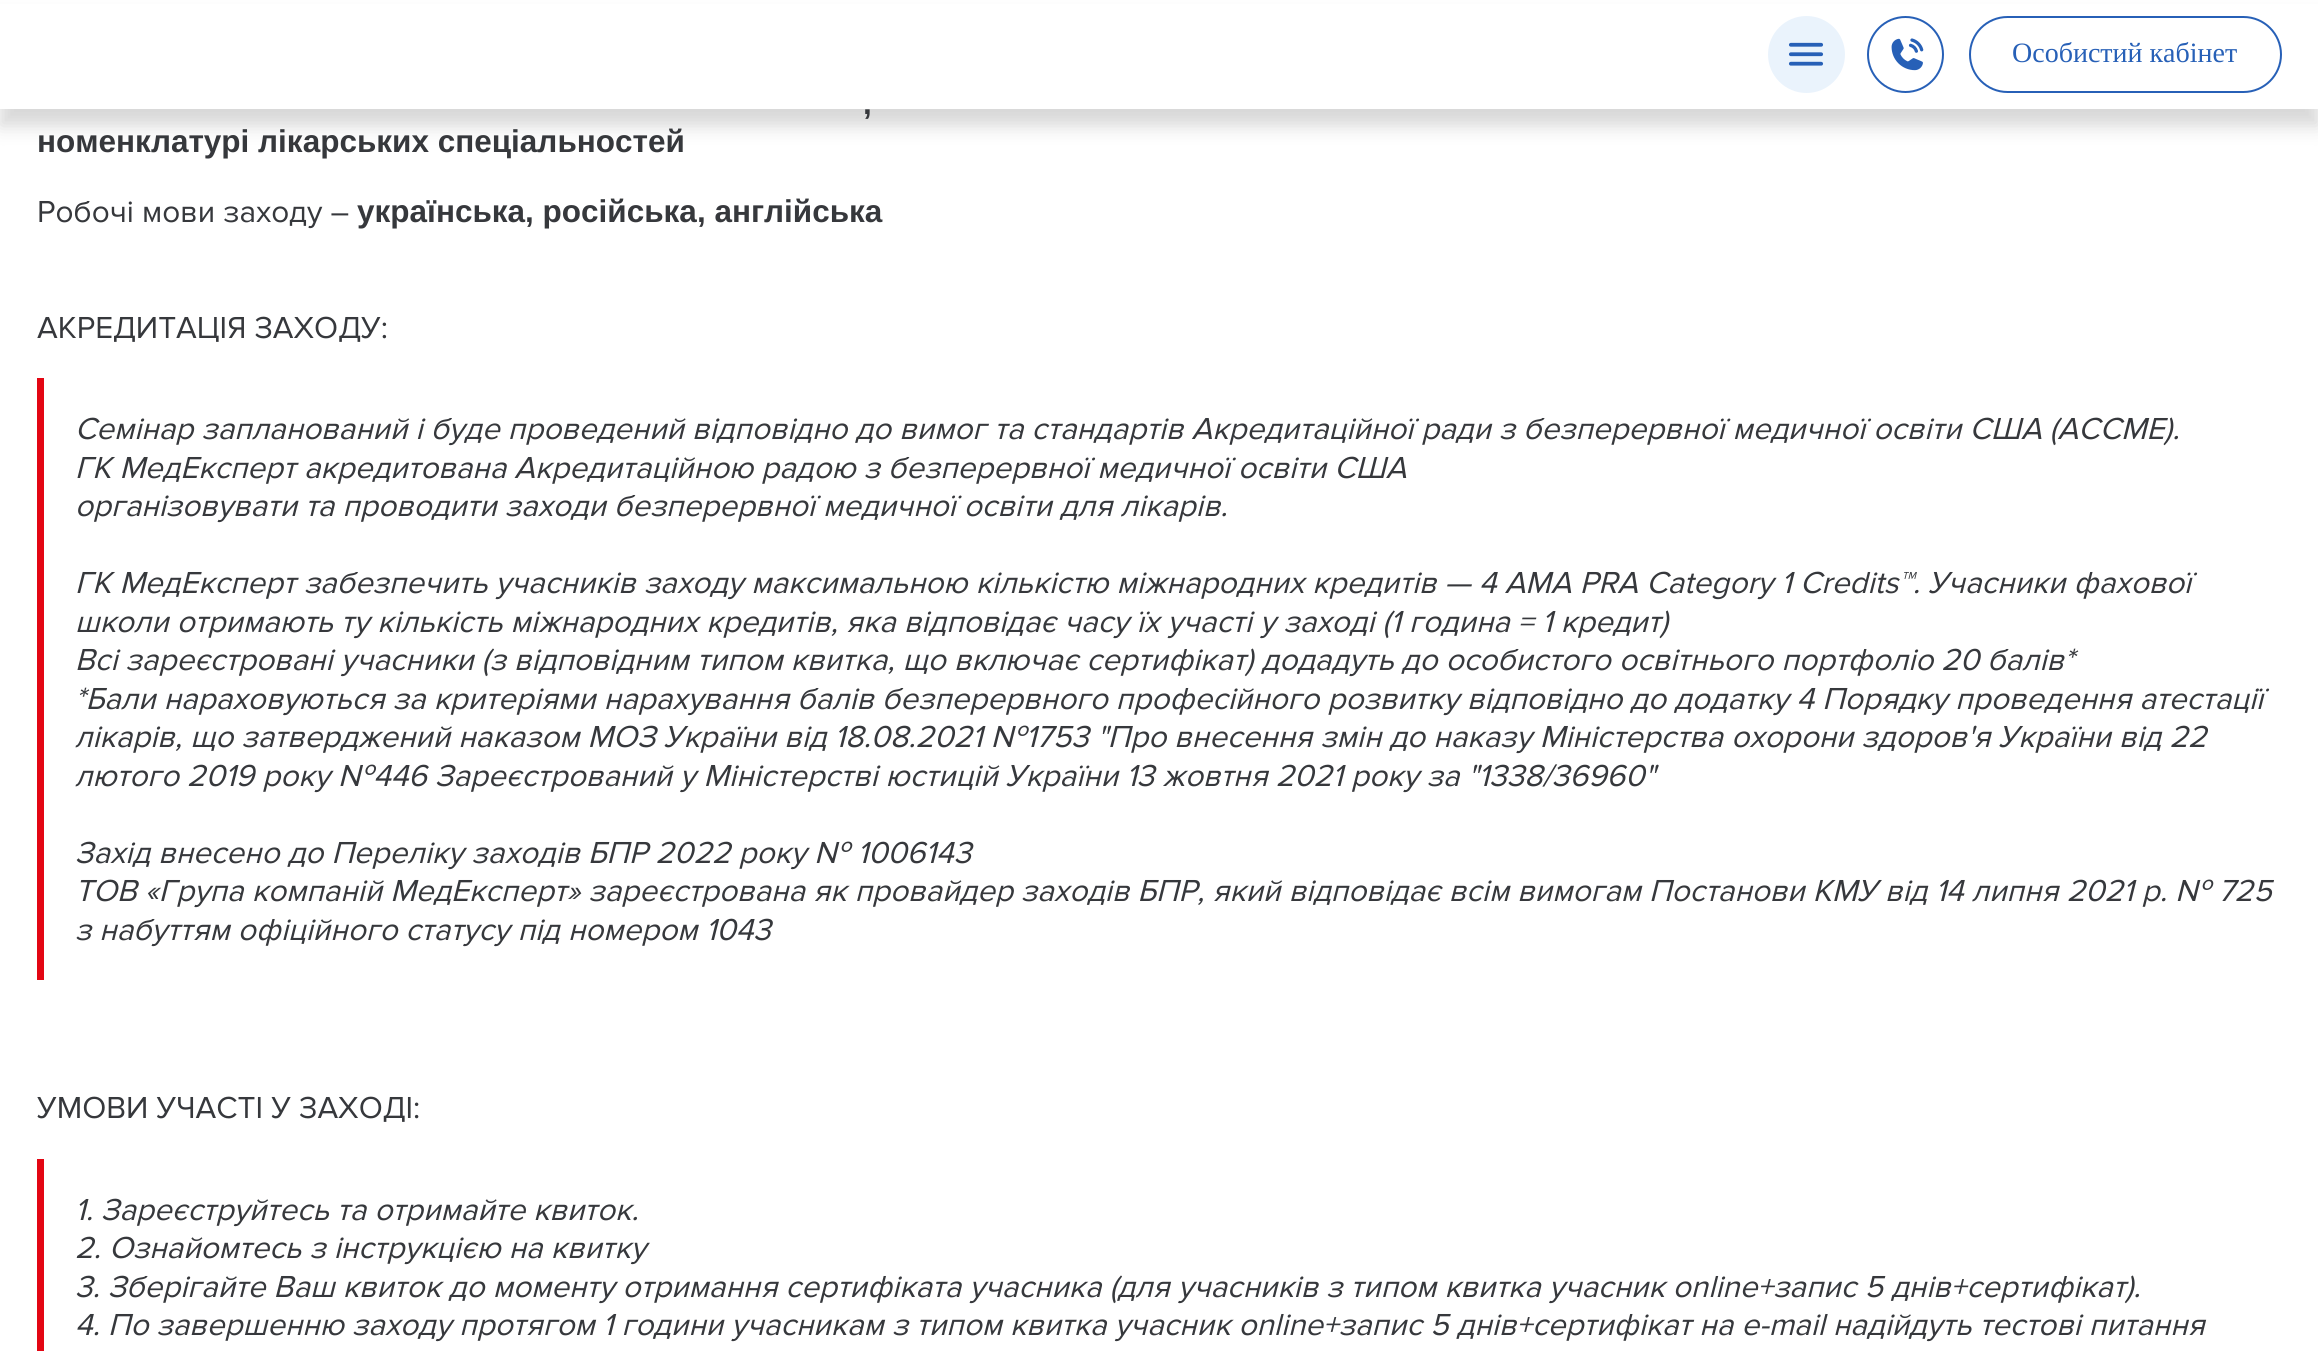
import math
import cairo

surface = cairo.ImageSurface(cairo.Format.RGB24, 2318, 1351)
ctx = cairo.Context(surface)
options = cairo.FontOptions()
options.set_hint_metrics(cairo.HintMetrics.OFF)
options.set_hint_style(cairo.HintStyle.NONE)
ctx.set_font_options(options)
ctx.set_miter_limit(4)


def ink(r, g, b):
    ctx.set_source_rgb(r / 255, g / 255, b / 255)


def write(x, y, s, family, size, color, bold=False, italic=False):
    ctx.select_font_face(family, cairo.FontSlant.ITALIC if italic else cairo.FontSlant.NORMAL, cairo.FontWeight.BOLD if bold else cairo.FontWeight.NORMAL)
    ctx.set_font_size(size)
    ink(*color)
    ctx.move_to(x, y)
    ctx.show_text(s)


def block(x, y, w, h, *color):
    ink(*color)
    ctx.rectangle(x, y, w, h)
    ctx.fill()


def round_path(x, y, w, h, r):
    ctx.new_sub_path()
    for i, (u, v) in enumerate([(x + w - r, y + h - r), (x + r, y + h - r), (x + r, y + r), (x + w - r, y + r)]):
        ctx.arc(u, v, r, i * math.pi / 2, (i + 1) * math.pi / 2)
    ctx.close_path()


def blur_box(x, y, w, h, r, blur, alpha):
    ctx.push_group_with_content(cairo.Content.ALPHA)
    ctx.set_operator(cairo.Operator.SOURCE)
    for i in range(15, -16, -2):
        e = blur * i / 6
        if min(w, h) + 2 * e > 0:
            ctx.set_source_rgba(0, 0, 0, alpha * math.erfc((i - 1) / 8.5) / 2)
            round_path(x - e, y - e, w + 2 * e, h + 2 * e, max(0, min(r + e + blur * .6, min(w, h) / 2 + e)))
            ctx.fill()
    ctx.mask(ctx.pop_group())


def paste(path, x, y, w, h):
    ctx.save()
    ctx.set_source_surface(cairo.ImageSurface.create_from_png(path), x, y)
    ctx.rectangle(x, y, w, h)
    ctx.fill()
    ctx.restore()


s1 = dict(family="Liberation Serif", size=28, color=(39, 96, 183))
s2 = dict(family="Liberation Sans", size=31.5, color=(54, 56, 60), bold=True)
s3 = dict(family="Proxima Nova", size=31.5, color=(54, 56, 60))
s4 = dict(family="Proxima Nova", size=31.5, color=(54, 56, 60), italic=True)

ink(255, 255, 255)
ctx.paint()
ink(163, 163, 163)
blur_box(0, 18, 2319, 108, 0, 9, 0.43)
block(0, 4, 2318, 105, 255, 255, 255)
paste("pic1.png", 1768, 16, 77, 77)
ctx.arc(1905.5, 54.5, 37.5, 0, 2 * math.pi)
ink(39, 96, 183)
ctx.stroke()
paste("pic2.png", 1891, 38, 33, 33)
round_path(1970, 17, 311, 75, 37.5)
ctx.stroke()
write(2012, 62, "Особистий кабінет", **s1)
write(863, 114, ",", **s2)
write(37, 152, "номенклатурі лікарських спеціальностей", **s2)
write(37, 222, "Робочі мови заходу –", **s3)
write(357, 222, "українська, російська, англійська", **s2)
write(37, 338, "АКРЕДИТАЦІЯ ЗАХОДУ:", **s3)
block(37, 378, 7, 602, 227, 6, 19)
write(75, 439, "Семінар запланований і буде проведений відповідно до вимог та стандартів Акредитаційної ради з безперервної медичної освіти США (АССМЕ).", **s4)
write(75, 478, "ГК МедЕксперт акредитована Акредитаційною радою з безперервної медичної освіти США", **s4)
write(75, 516, "організовувати та проводити заходи безперервної медичної освіти для лікарів.", **s4)
write(75, 593, "ГК МедЕксперт забезпечить учасників заходу максимальною кількістю міжнародних кредитів — 4 АМА PRA Category 1 Credits™. Учасники фахової", **s4)
write(75, 632, "школи отримають ту кількість міжнародних кредитів, яка відповідає часу їх участі у заході (1 година = 1 кредит)", **s4)
write(75, 670, "Всі зареєстровані учасники (з відповідним типом квитка, що включає сертифікат) додадуть до особистого освітнього портфоліо 20 балів*", **s4)
write(75, 709, "*Бали нараховуються за критеріями нарахування балів безперервного професійного розвитку відповідно до додатку 4 Порядку проведення атестації", **s4)
write(75, 747, "лікарів, що затверджений наказом МОЗ України від 18.08.2021 №1753 \"Про внесення змін до наказу Міністерства охорони здоров'я України від 22", **s4)
write(75, 786, "лютого 2019 року №446 Зареєстрований у Міністерстві юстицій України 13 жовтня 2021 року за \"1338/36960\"", **s4)
write(75, 863, "Захід внесено до Переліку заходів БПР 2022 року № 1006143", **s4)
write(75, 901, "ТОВ «Група компаній МедЕксперт» зареєстрована як провайдер заходів БПР, який відповідає всім вимогам Постанови КМУ від 14 липня 2021 р. № 725", **s4)
write(75, 940, "з набуттям офіційного статусу під номером 1043", **s4)
write(37, 1118, "УМОВИ УЧАСТІ У ЗАХОДІ:", **s3)
block(37, 1159, 7, 192, 227, 6, 19)
write(75, 1220, "1. Зареєструйтесь та отримайте квиток.", **s4)
write(75, 1258, "2. Ознайомтесь з інструкцією на квитку", **s4)
write(75, 1297, "3. Зберігайте Ваш квиток до моменту отримання сертифіката учасника (для учасників з типом квитка учасник online+запис 5 днів+сертифікат).", **s4)
write(75, 1335, "4. По завершенню заходу протягом 1 години учасникам з типом квитка учасник online+запис 5 днів+сертифікат на e-mail надійдуть тестові питання", **s4)
surface.write_to_png("screenshot.png")
